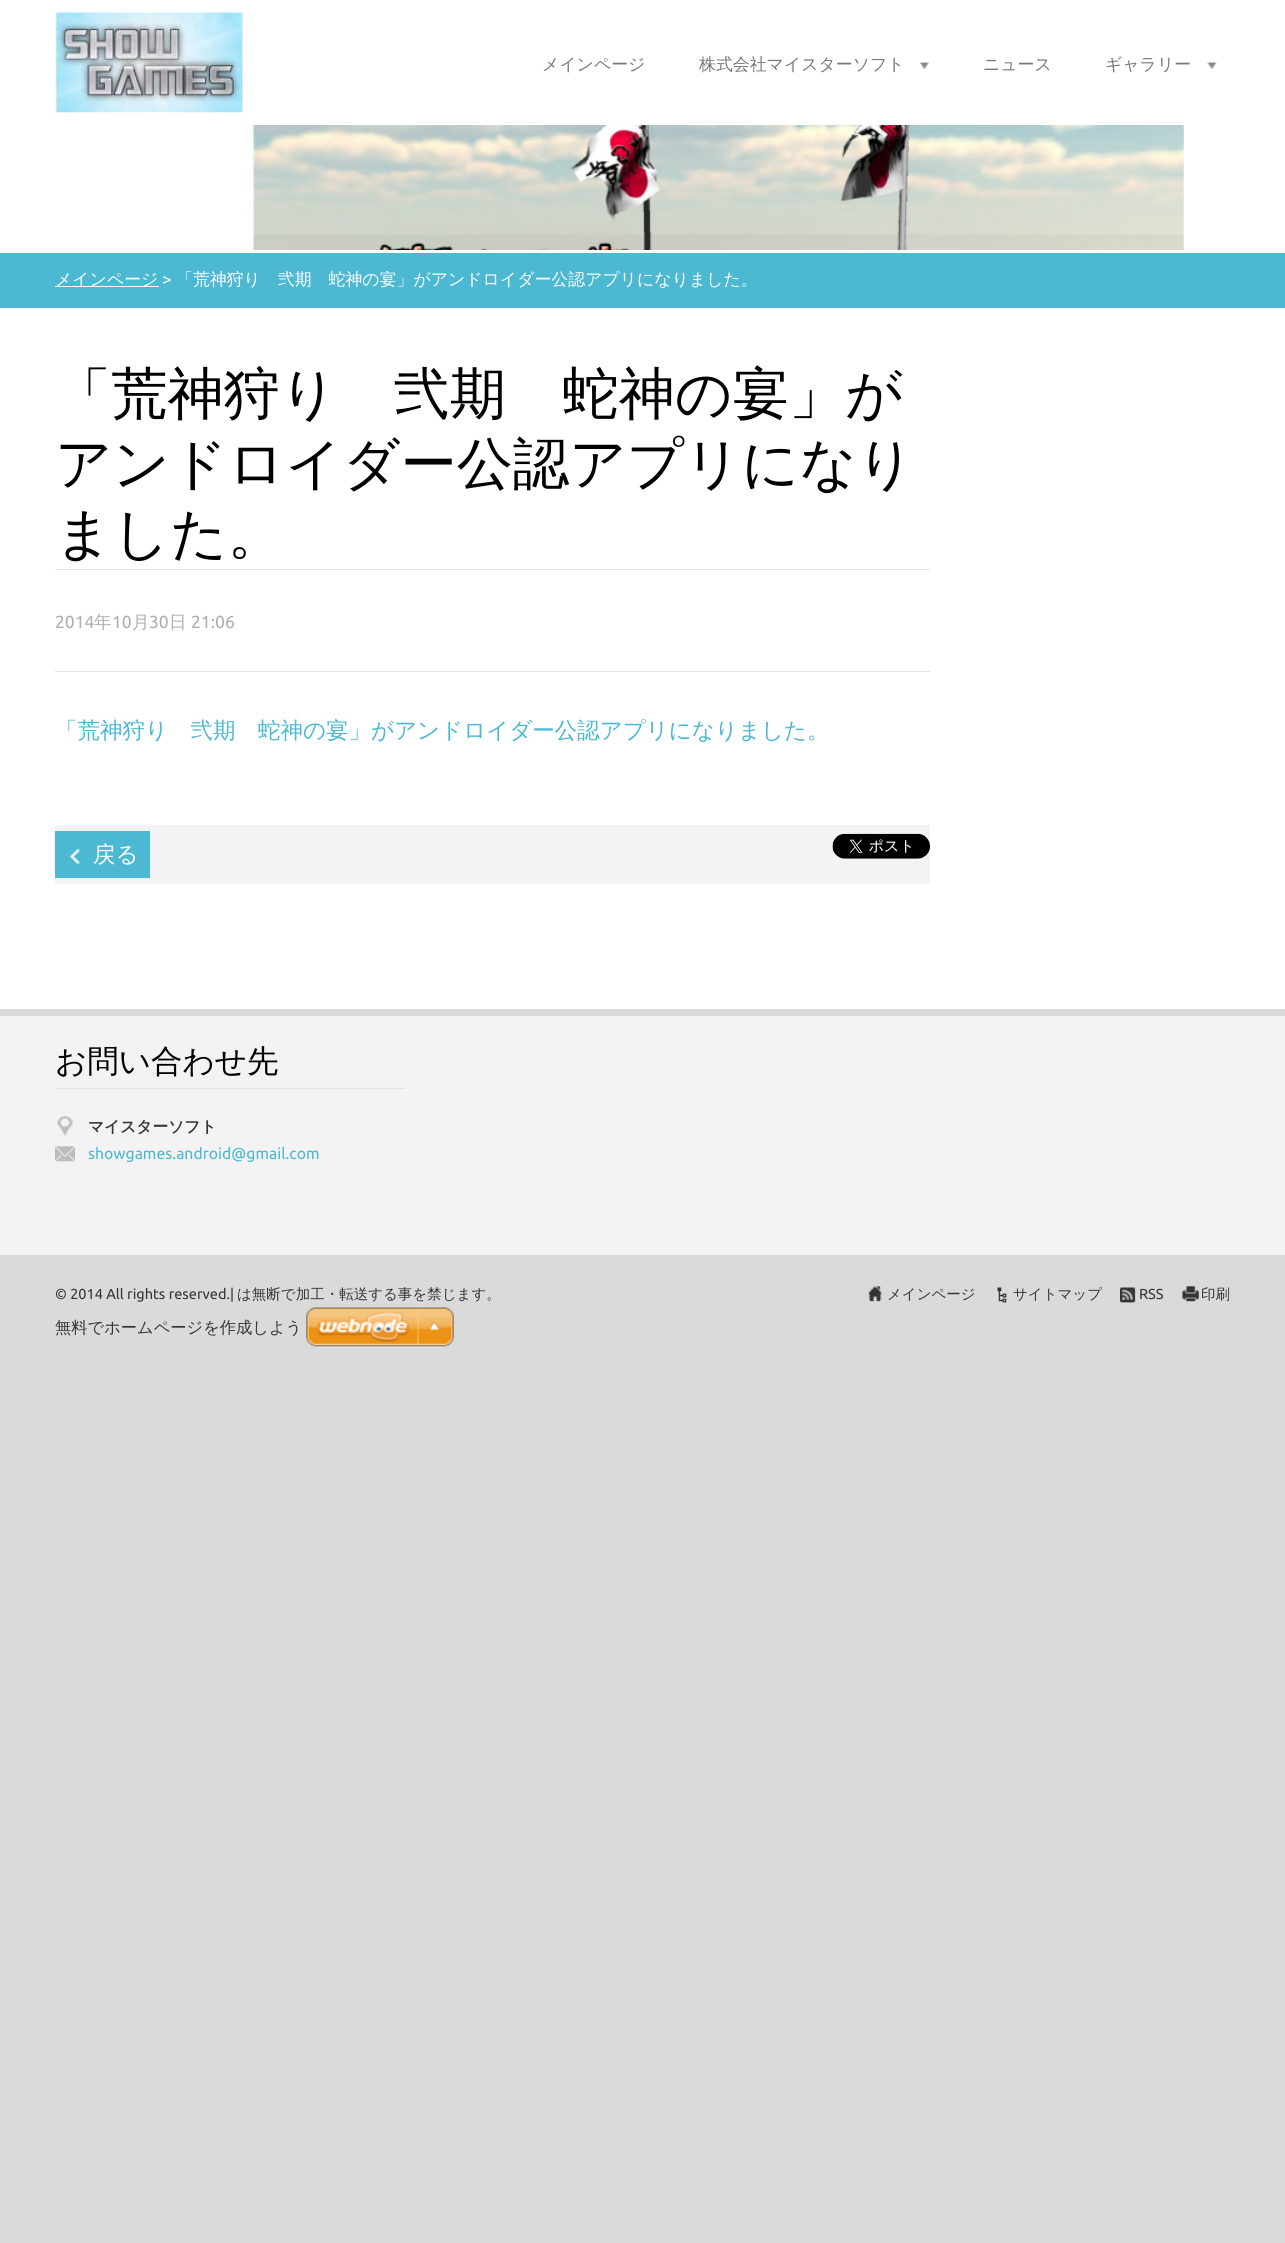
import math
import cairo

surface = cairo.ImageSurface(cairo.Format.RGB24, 1285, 2243)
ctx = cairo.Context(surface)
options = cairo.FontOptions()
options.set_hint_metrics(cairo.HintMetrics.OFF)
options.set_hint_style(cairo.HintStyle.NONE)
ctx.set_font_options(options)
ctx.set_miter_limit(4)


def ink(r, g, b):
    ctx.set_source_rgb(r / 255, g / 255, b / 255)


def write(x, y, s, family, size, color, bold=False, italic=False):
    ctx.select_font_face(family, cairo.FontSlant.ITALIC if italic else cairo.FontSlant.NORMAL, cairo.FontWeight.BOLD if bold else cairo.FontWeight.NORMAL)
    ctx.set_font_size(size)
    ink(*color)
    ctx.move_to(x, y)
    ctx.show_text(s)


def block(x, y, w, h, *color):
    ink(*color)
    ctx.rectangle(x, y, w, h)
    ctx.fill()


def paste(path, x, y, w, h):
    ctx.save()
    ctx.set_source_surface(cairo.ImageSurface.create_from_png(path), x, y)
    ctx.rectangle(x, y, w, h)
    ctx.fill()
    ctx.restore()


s1 = dict(family="WenQuanYi Zen Hei Medium", size=16.9, color=(119, 119, 119))
s2 = dict(family="WenQuanYi Zen Hei Medium", size=16.9, color=(255, 255, 255))
s3 = dict(family="Ubuntu", size=16.9, color=(255, 255, 255))
s4 = dict(family="WenQuanYi Zen Hei Medium", size=56.25, color=(0, 0, 0))
s5 = dict(family="Ubuntu", size=17.5, color=(174, 174, 174))
s6 = dict(family="WenQuanYi Zen Hei Medium", size=17.5, color=(174, 174, 174))
s7 = dict(family="WenQuanYi Zen Hei Medium", size=22.5, color=(76, 184, 210))
s8 = dict(family="WenQuanYi Zen Hei Medium", size=22.5, color=(255, 255, 255))
s9 = dict(family="WenQuanYi Zen Hei Medium", size=31.5, color=(0, 0, 0))
s10 = dict(family="WenQuanYi Zen Hei", size=15.75, color=(54, 54, 54), bold=True)
s11 = dict(family="Ubuntu", size=15.75, color=(76, 184, 210))
s12 = dict(family="Ubuntu", size=14.5, color=(54, 54, 54))
s13 = dict(family="WenQuanYi Zen Hei Medium", size=14.5, color=(54, 54, 54))
s14 = dict(family="WenQuanYi Zen Hei Medium", size=16.25, color=(54, 54, 54))

ink(218, 218, 218)
ctx.paint()
block(0, 0, 1285, 1009, 255, 255, 255)
paste("pic1.png", 55, 12, 188, 101)
write(542, 70, "メインページ", **s1)
paste("pic2.png", 920, 62, 9, 8)
write(699, 70, "株式会社マイスターソフト", **s1)
write(983, 70, "ニュース", **s1)
paste("pic3.png", 1207, 62, 10, 8)
write(1105, 70, "ギャラリー", **s1)
paste("pic4.png", 252, 125, 932, 125)
block(0, 253, 1285, 55, 76, 184, 210)
block(55, 286, 104, 1, 255, 255, 255)
write(55, 285, "メインページ", **s2)
write(162, 285, ">", **s3)
write(176, 285, "「荒神狩り　弐期　蛇神の宴」がアンドロイダー公認アプリになりました。", **s2)
block(55, 569, 875, 1, 226, 226, 226)
write(55, 413, "「荒神狩り　弐期　蛇神の宴」が", **s4)
write(55, 483, "アンドロイダー公認アプリになり", **s4)
write(55, 553, "ました。", **s4)
write(55, 628, "2014", **s5)
write(94, 628, "年", **s6)
write(112, 628, "10", **s5)
write(132, 628, "月", **s6)
write(149, 628, "30", **s5)
write(169, 628, "日", **s6)
write(191, 628, "21:06", **s5)
block(55, 671, 875, 1, 226, 226, 226)
write(55, 738, "「荒神狩り　弐期　蛇神の宴」がアンドロイダー公認アプリになりました。", **s7)
block(55, 825, 875, 59, 243, 243, 243)
block(55, 831, 95, 47, 76, 184, 210)
paste("pic5.png", 69, 848, 12, 17)
write(93, 862, "戻る", **s8)
paste("pic6.png", 832, 833, 98, 26)
block(0, 1016, 1285, 239, 243, 243, 243)
block(55, 1088, 350, 1, 226, 226, 226)
write(55, 1072, "お問い合わせ先", **s9)
paste("pic7.png", 57, 1116, 16, 20)
write(88, 1132, "マイスターソフト", **s10)
paste("pic8.png", 55, 1146, 20, 16)
write(88, 1159, "showgames.android@gmail.com", **s11)
write(55, 1299, "© 2014 All rights reserved.|", **s12)
write(237, 1299, "は無断で加工・転送する事を禁じます。", **s13)
paste("pic9.png", 868, 1286, 14, 16)
write(887, 1299, "メインページ", **s13)
paste("pic10.png", 997, 1287, 10, 16)
write(1013, 1299, "サイトマップ", **s13)
paste("pic11.png", 1120, 1287, 16, 16)
write(1139, 1299, "RSS", **s12)
paste("pic12.png", 1182, 1286, 17, 16)
write(1201, 1299, "印刷", **s13)
write(55, 1333, "無料でホームページを作成しよう", **s14)
paste("pic13.png", 306, 1307, 148, 40)
surface.write_to_png("screenshot.png")
